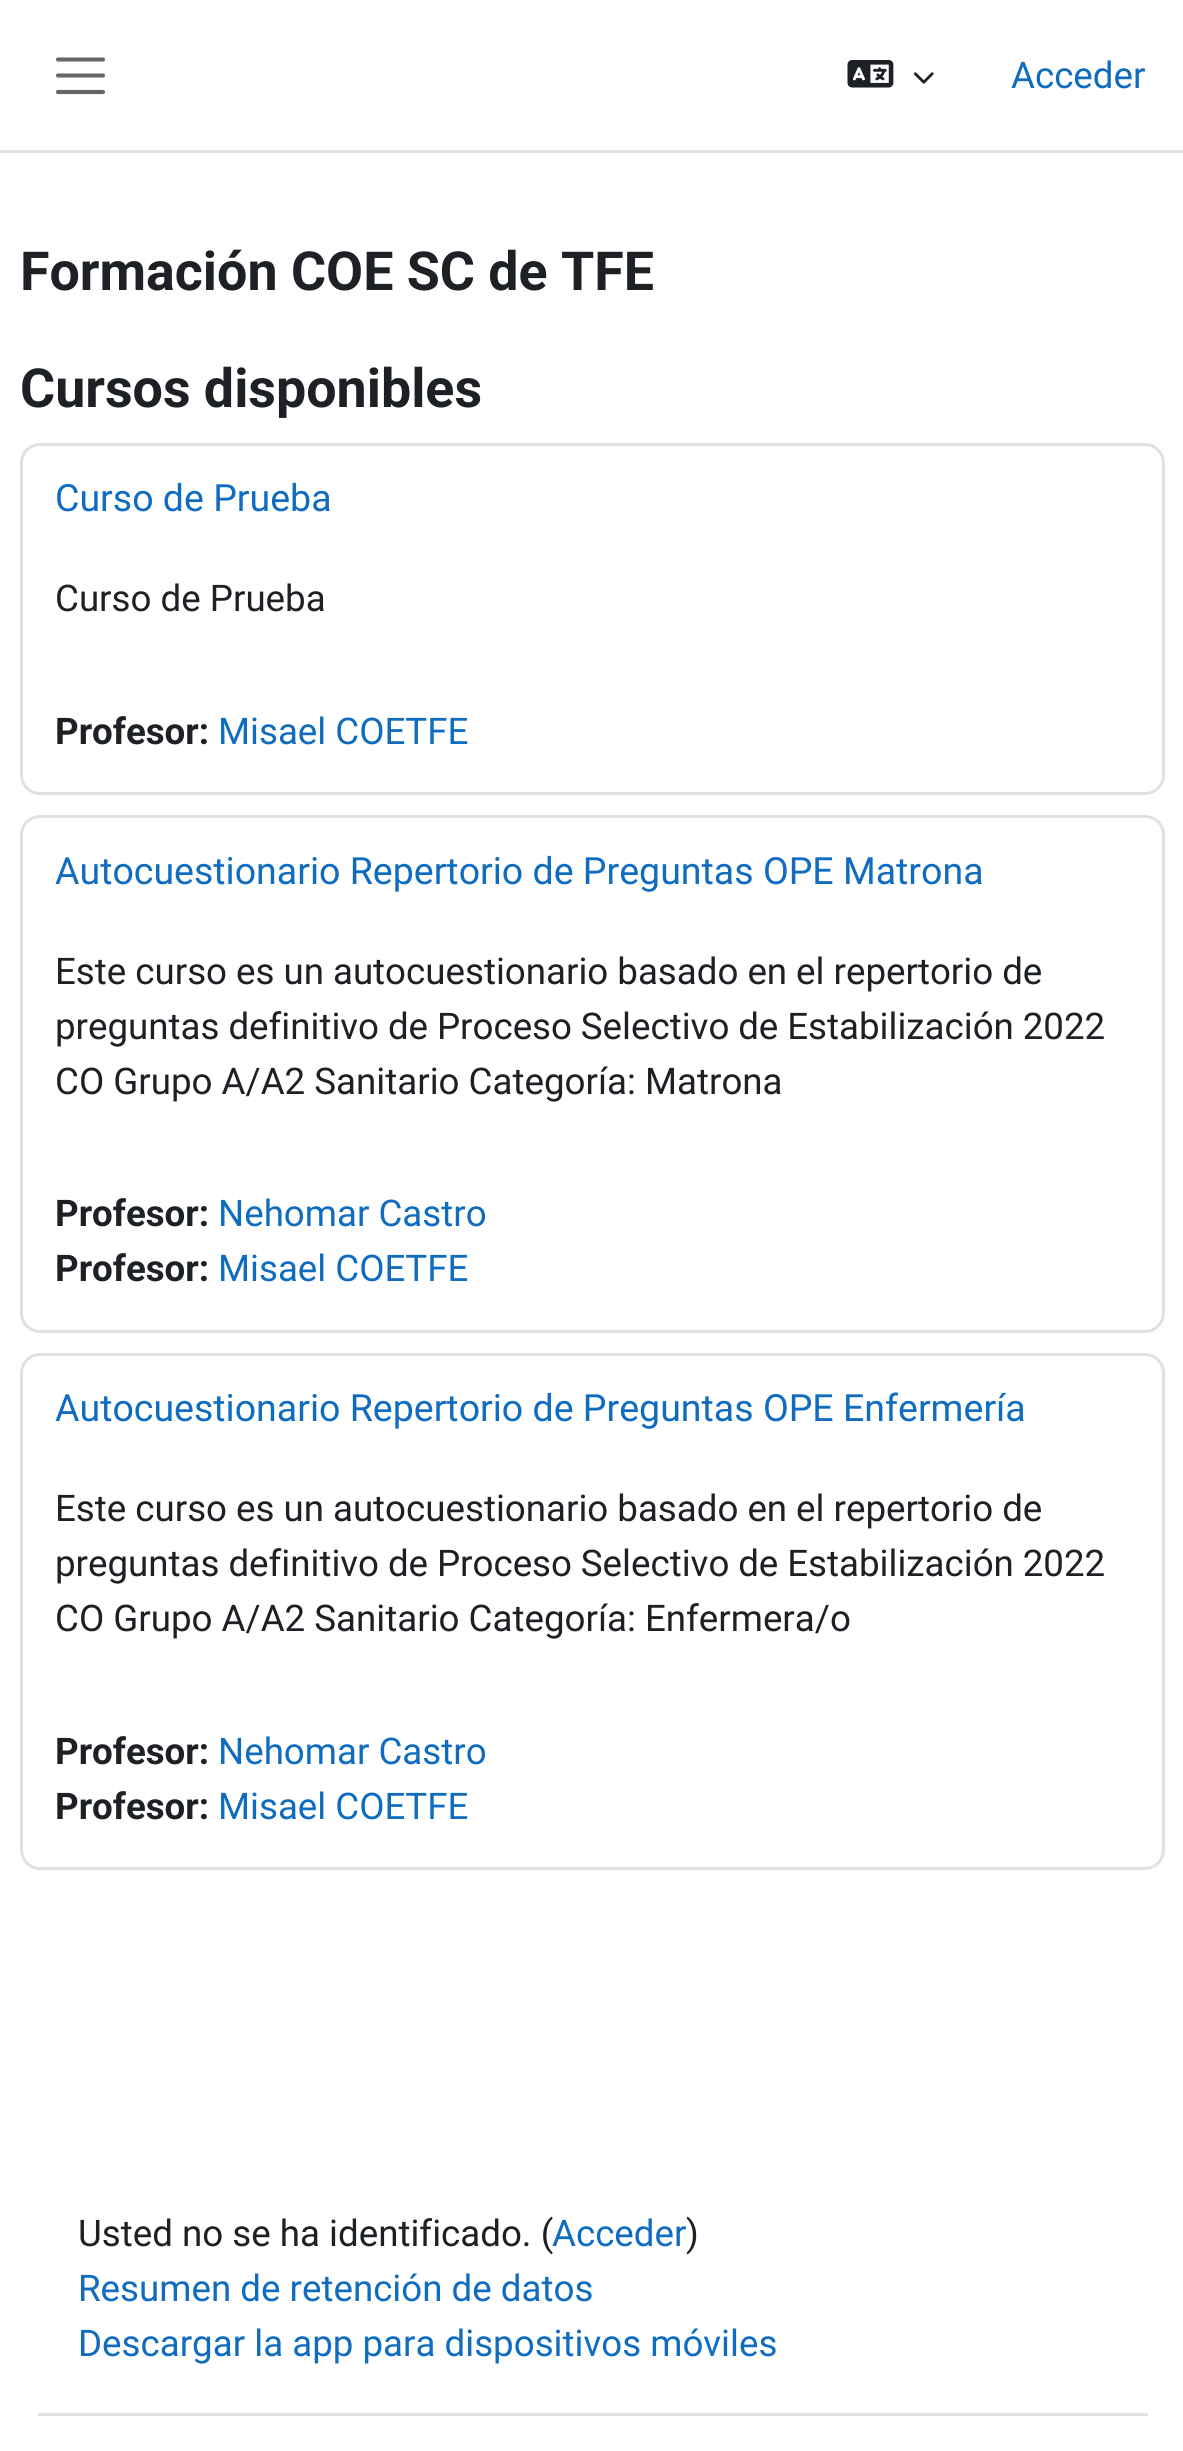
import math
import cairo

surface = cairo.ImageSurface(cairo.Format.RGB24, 1183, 2451)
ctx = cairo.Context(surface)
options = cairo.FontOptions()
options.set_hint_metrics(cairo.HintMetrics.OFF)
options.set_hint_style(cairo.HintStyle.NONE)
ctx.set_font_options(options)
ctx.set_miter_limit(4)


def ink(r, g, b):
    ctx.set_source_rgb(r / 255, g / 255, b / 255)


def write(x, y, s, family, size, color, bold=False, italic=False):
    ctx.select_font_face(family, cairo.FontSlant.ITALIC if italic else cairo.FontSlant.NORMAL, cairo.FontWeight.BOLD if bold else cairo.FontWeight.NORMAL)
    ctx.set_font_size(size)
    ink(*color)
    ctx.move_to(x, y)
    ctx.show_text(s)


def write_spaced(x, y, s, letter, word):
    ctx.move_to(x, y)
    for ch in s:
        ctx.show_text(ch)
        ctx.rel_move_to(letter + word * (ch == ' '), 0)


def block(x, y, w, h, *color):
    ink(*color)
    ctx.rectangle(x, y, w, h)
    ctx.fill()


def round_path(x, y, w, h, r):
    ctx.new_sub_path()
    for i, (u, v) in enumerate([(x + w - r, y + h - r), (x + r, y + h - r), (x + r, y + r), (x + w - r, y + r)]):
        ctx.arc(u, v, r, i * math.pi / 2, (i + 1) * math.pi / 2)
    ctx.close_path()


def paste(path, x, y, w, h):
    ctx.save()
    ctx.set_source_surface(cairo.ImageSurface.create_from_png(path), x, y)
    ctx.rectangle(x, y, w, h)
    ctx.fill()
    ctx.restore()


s1 = dict(family="Roboto", size=36.7, color=(15, 108, 191))
s2 = dict(family="Roboto", size=53.75, color=(29, 33, 37), bold=True)
s3 = dict(family="Roboto", size=37.5, color=(15, 108, 191))
s4 = dict(family="Roboto", size=36.7, color=(29, 33, 37))
s5 = dict(family="Roboto", size=36.7, color=(29, 33, 37), bold=True)

ink(255, 255, 255)
ctx.paint()
block(0, 150, 1183, 3, 222, 226, 230)
ctx.new_path()
ctx.move_to(58, 59.5)
ctx.line_to(103, 59.5)
ctx.move_to(58, 75.5)
ctx.line_to(103, 75.5)
ctx.move_to(58, 92)
ctx.line_to(103, 92)
ink(102, 102, 102)
ctx.set_line_width(4.1)
ctx.set_line_cap(cairo.LineCap.ROUND)
ctx.stroke()
paste("pic1.png", 847, 60, 47, 28)
paste("pic2.png", 913, 72, 21, 12)
write(1011, 88, "Acceder", **s1)
write(20, 290, "Formación COE SC de TFE", **s2)
write(20, 407, "Cursos disponibles", **s2)
round_path(21.5, 444.5, 1142, 349, 18.5)
ink(222, 226, 230)
ctx.set_line_width(3)
ctx.set_line_cap(cairo.LineCap.BUTT)
ctx.stroke()
write(55, 511, "Curso de Prueba", **s3)
write(55, 611, "Curso de Prueba", **s4)
write(55, 744, "Profesor:", **s5)
write(218, 744, "Misael COETFE", **s1)
round_path(21.5, 816.5, 1142, 515, 18.5)
ink(222, 226, 230)
ctx.stroke()
write(55, 884, "Autocuestionario Repertorio de Preguntas OPE Matrona", **s3)
ctx.set_font_size(36.7)
ink(29, 33, 37)
write_spaced(55, 984, "Este curso es un autocuestionario basado en el repertorio de", 0, -0.1)
write_spaced(55, 1039, "preguntas definitivo de Proceso Selectivo de Estabilización 2022", 0, -0.25)
write(55, 1094, "CO Grupo A/A2 Sanitario Categoría: Matrona", **s4)
write(55, 1226, "Profesor:", **s5)
write(218, 1226, "Nehomar Castro", **s1)
write(55, 1281, "Profesor:", **s5)
write(218, 1281, "Misael COETFE", **s1)
round_path(21.5, 1354.5, 1142, 514, 18.5)
ink(222, 226, 230)
ctx.stroke()
write(55, 1421, "Autocuestionario Repertorio de Preguntas OPE Enfermería", **s3)
ctx.set_font_size(36.7)
ink(29, 33, 37)
write_spaced(55, 1521, "Este curso es un autocuestionario basado en el repertorio de", 0, -0.1)
write_spaced(55, 1576, "preguntas definitivo de Proceso Selectivo de Estabilización 2022", 0, -0.25)
write(55, 1631, "CO Grupo A/A2 Sanitario Categoría: Enfermera/o", **s4)
write(55, 1764, "Profesor:", **s5)
write(218, 1764, "Nehomar Castro", **s1)
write(55, 1819, "Profesor:", **s5)
write(218, 1819, "Misael COETFE", **s1)
block(38, 2413, 1110, 3, 222, 226, 230)
write(78, 2246, "Usted no se ha identificado. (", **s4)
write(552, 2246, "Acceder", **s1)
write(686, 2246, ")", **s4)
write(78, 2301, "Resumen de retención de datos", **s1)
write(78, 2356, "Descargar la app para dispositivos móviles", **s1)
surface.write_to_png("screenshot.png")
